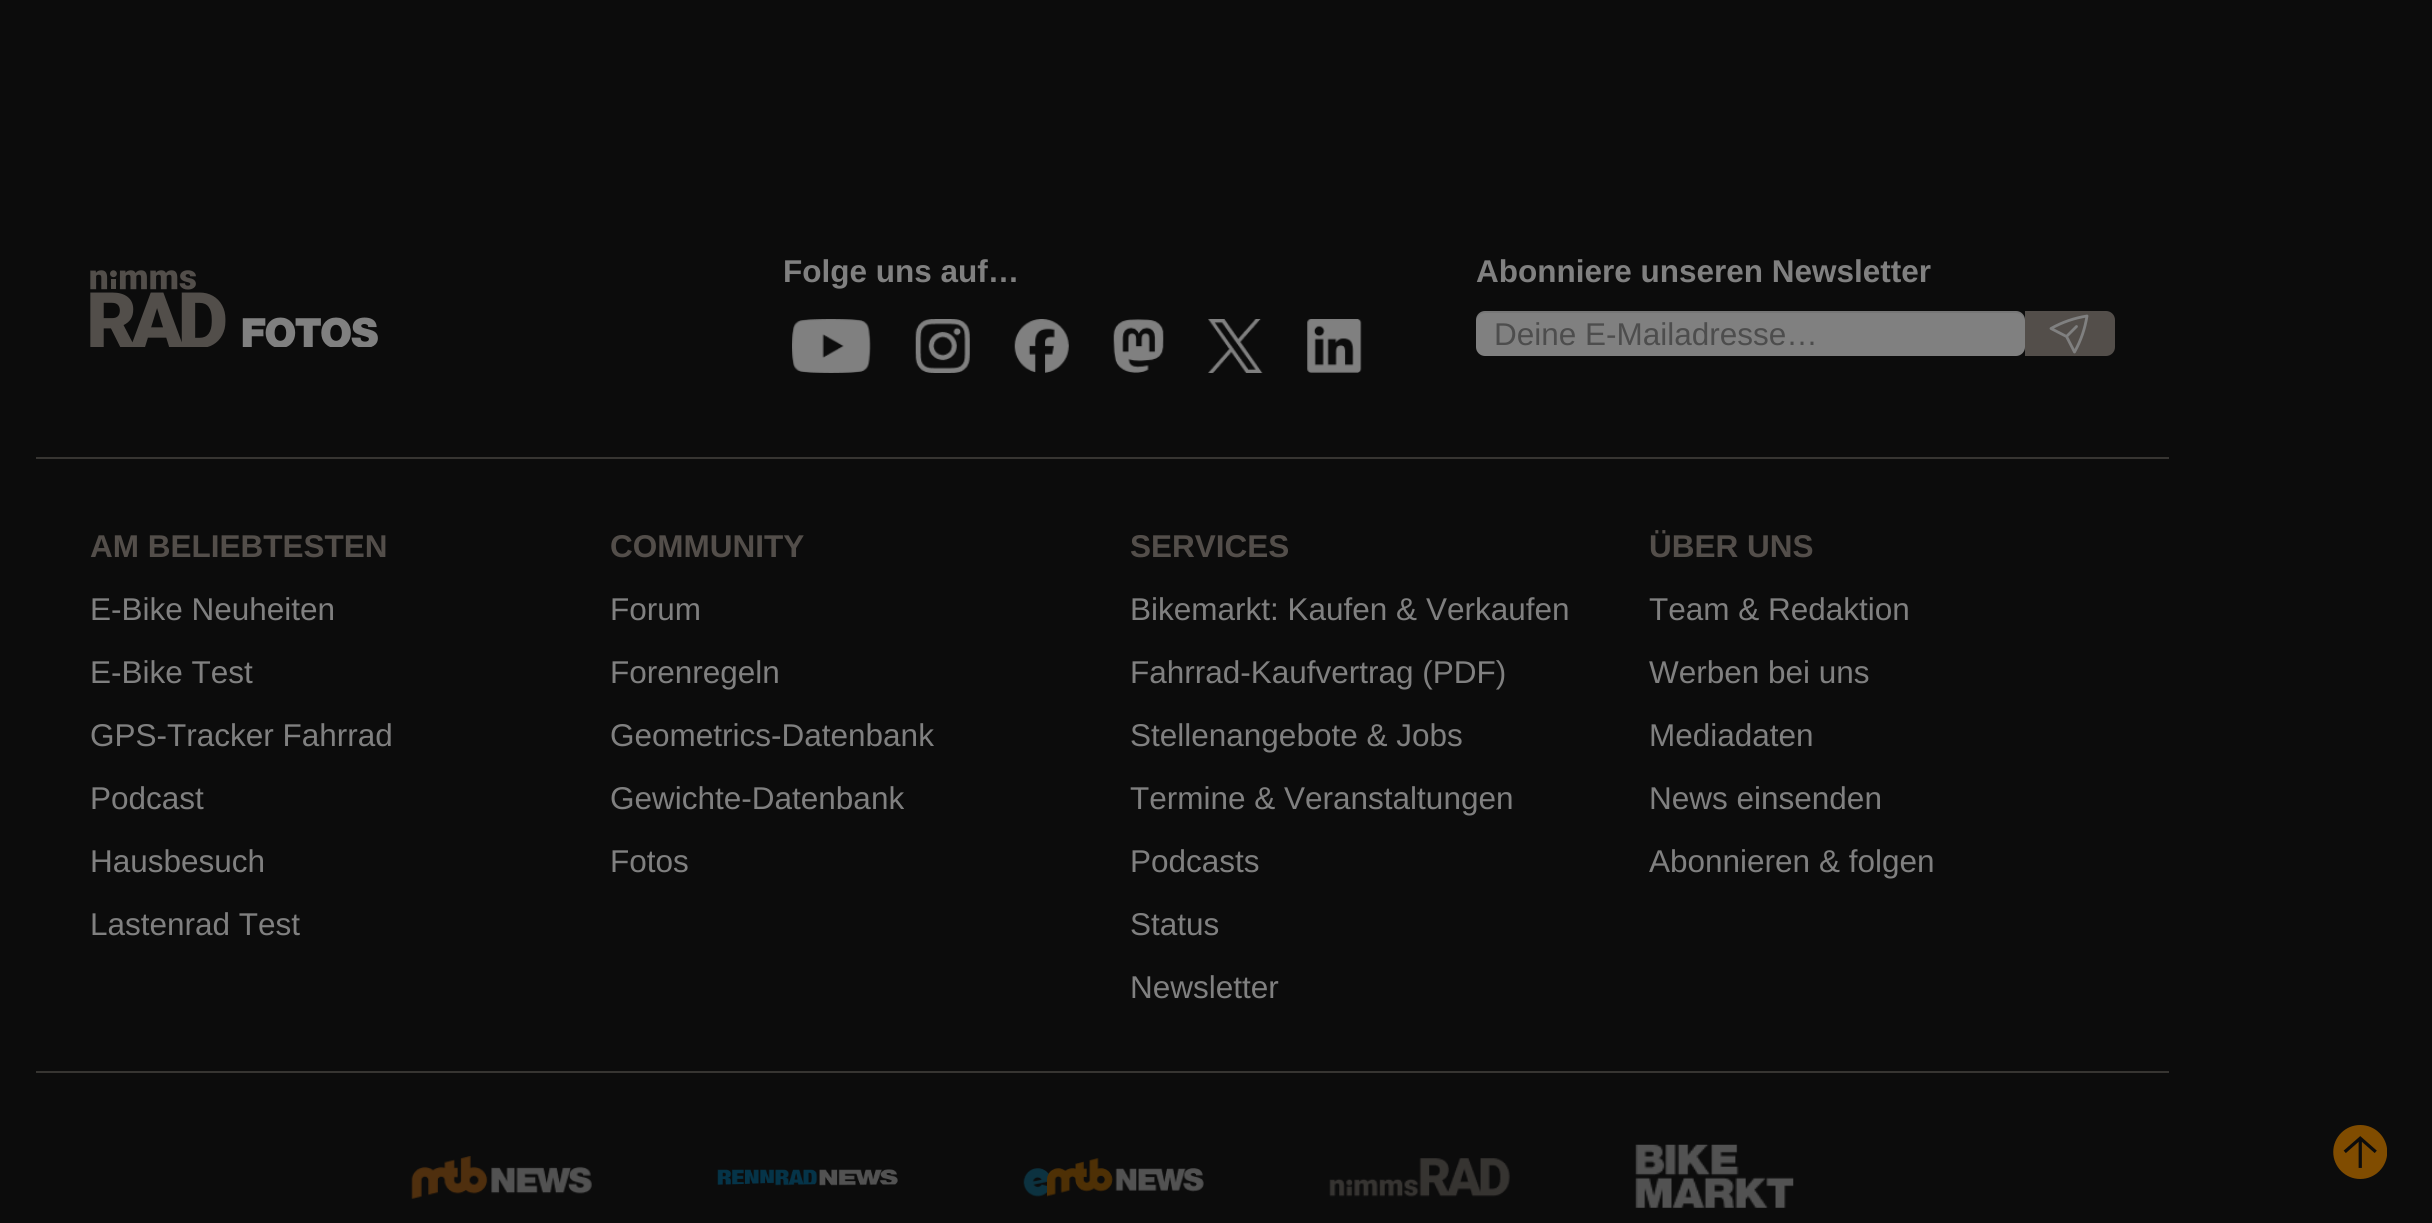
import math
import cairo

surface = cairo.ImageSurface(cairo.Format.RGB24, 2432, 1223)
ctx = cairo.Context(surface)
options = cairo.FontOptions()
options.set_hint_metrics(cairo.HintMetrics.OFF)
options.set_hint_style(cairo.HintStyle.NONE)
ctx.set_font_options(options)
ctx.set_miter_limit(4)


def ink(r, g, b):
    ctx.set_source_rgb(r / 255, g / 255, b / 255)


def write(x, y, s, family, size, color, bold=False, italic=False):
    ctx.select_font_face(family, cairo.FontSlant.ITALIC if italic else cairo.FontSlant.NORMAL, cairo.FontWeight.BOLD if bold else cairo.FontWeight.NORMAL)
    ctx.set_font_size(size)
    ink(*color)
    ctx.move_to(x, y)
    ctx.show_text(s)


def block(x, y, w, h, *color):
    ink(*color)
    ctx.rectangle(x, y, w, h)
    ctx.fill()


def round_path(x, y, w, h, r):
    ctx.new_sub_path()
    for i, (u, v) in enumerate([(x + w - r, y + h - r), (x + r, y + h - r), (x + r, y + r), (x + w - r, y + r)]):
        ctx.arc(u, v, r, i * math.pi / 2, (i + 1) * math.pi / 2)
    ctx.close_path()


def paste(path, x, y, w, h):
    ctx.save()
    ctx.set_source_surface(cairo.ImageSurface.create_from_png(path), x, y)
    ctx.rectangle(x, y, w, h)
    ctx.fill()
    ctx.restore()


s1 = dict(family="Liberation Sans", size=31.5, color=(128, 128, 128), bold=True)
s2 = dict(family="Liberation Sans", size=31.5, color=(77, 77, 77))
s3 = dict(family="Liberation Sans", size=31.5, color=(83, 78, 74), bold=True)
s4 = dict(family="Liberation Sans", size=31.5, color=(128, 128, 128))

ink(12, 12, 12)
ctx.paint()
block(36, 457, 2133, 2, 55, 53, 50)
paste("pic1.png", 90, 270, 288, 77)
write(783, 282, "Folge uns auf…", **s1)
paste("pic2.png", 792, 319, 79, 54)
paste("pic3.png", 915, 319, 55, 54)
paste("pic4.png", 1014, 319, 55, 54)
paste("pic5.png", 1113, 319, 51, 54)
paste("pic6.png", 1208, 319, 55, 54)
paste("pic7.png", 1307, 319, 55, 54)
write(1476, 282, "Abonniere unseren Newsletter", **s1)
round_path(1476, 311, 549, 45, 9)
ctx.fill()
ctx.set_source_rgba(0, 0, 0, 0.07)
ctx.new_path()
ctx.move_to(1485, 313)
ctx.line_to(2016, 313)
ctx.curve_to(2021, 313, 2025, 317, 2025, 322)
ctx.line_to(2025, 320)
ctx.curve_to(2025, 315, 2021, 311, 2016, 311)
ctx.line_to(1485, 311)
ctx.curve_to(1480, 311, 1476, 315, 1476, 320)
ctx.line_to(1476, 322)
ctx.curve_to(1476, 317, 1480, 313, 1485, 313)
ctx.close_path()
ctx.fill()
write(1494, 345, "Deine E-Mailadresse…", **s2)
ink(83, 78, 74)
ctx.new_path()
ctx.move_to(2025, 311)
ctx.line_to(2106, 311)
ctx.curve_to(2111, 311, 2115, 315, 2115, 320)
ctx.line_to(2115, 347)
ctx.curve_to(2115, 352, 2111, 356, 2106, 356)
ctx.line_to(2025, 356)
ctx.close_path()
ctx.fill()
ctx.new_path()
ctx.move_to(2066.5, 336.5)
ctx.line_to(2051, 328.5)
ctx.curve_to(2062.5, 322, 2074.5, 318, 2087, 316)
ctx.curve_to(2085, 328.5, 2081, 340.5, 2074.5, 352)
ctx.close_path()
ctx.move_to(2066.5, 336.5)
ctx.line_to(2076.5, 326.5)
ink(128, 128, 128)
ctx.set_line_width(2.8)
ctx.set_line_cap(cairo.LineCap.ROUND)
ctx.set_line_join(cairo.LineJoin.ROUND)
ctx.stroke()
block(36, 1071, 2133, 2, 55, 53, 50)
write(90, 557, "AM BELIEBTESTEN", **s3)
write(90, 620, "E-Bike Neuheiten", **s4)
write(90, 683, "E-Bike Test", **s4)
write(90, 746, "GPS-Tracker Fahrrad", **s4)
write(90, 809, "Podcast", **s4)
write(90, 872, "Hausbesuch", **s4)
write(90, 935, "Lastenrad Test", **s4)
write(610, 557, "COMMUNITY", **s3)
write(610, 620, "Forum", **s4)
write(610, 683, "Forenregeln", **s4)
write(610, 746, "Geometrics-Datenbank", **s4)
write(610, 809, "Gewichte-Datenbank", **s4)
write(610, 872, "Fotos", **s4)
write(1130, 557, "SERVICES", **s3)
write(1130, 620, "Bikemarkt: Kaufen & Verkaufen", **s4)
write(1130, 683, "Fahrrad-Kaufvertrag (PDF)", **s4)
write(1130, 746, "Stellenangebote & Jobs", **s4)
write(1130, 809, "Termine & Veranstaltungen", **s4)
write(1130, 872, "Podcasts", **s4)
write(1130, 935, "Status", **s4)
write(1130, 998, "Newsletter", **s4)
write(1649, 557, "ÜBER UNS", **s3)
write(1649, 620, "Team & Redaktion", **s4)
write(1649, 683, "Werben bei uns", **s4)
write(1649, 746, "Mediadaten", **s4)
write(1649, 809, "News einsenden", **s4)
write(1649, 872, "Abonnieren & folgen", **s4)
paste("pic8.png", 411, 1156, 181, 43)
paste("pic9.png", 717, 1169, 181, 17)
paste("pic10.png", 1023, 1158, 181, 39)
paste("pic11.png", 1329, 1158, 181, 39)
paste("pic12.png", 1635, 1144, 159, 64)
paste("pic13.png", 2333, 1125, 54, 54)
surface.write_to_png("screenshot.png")
